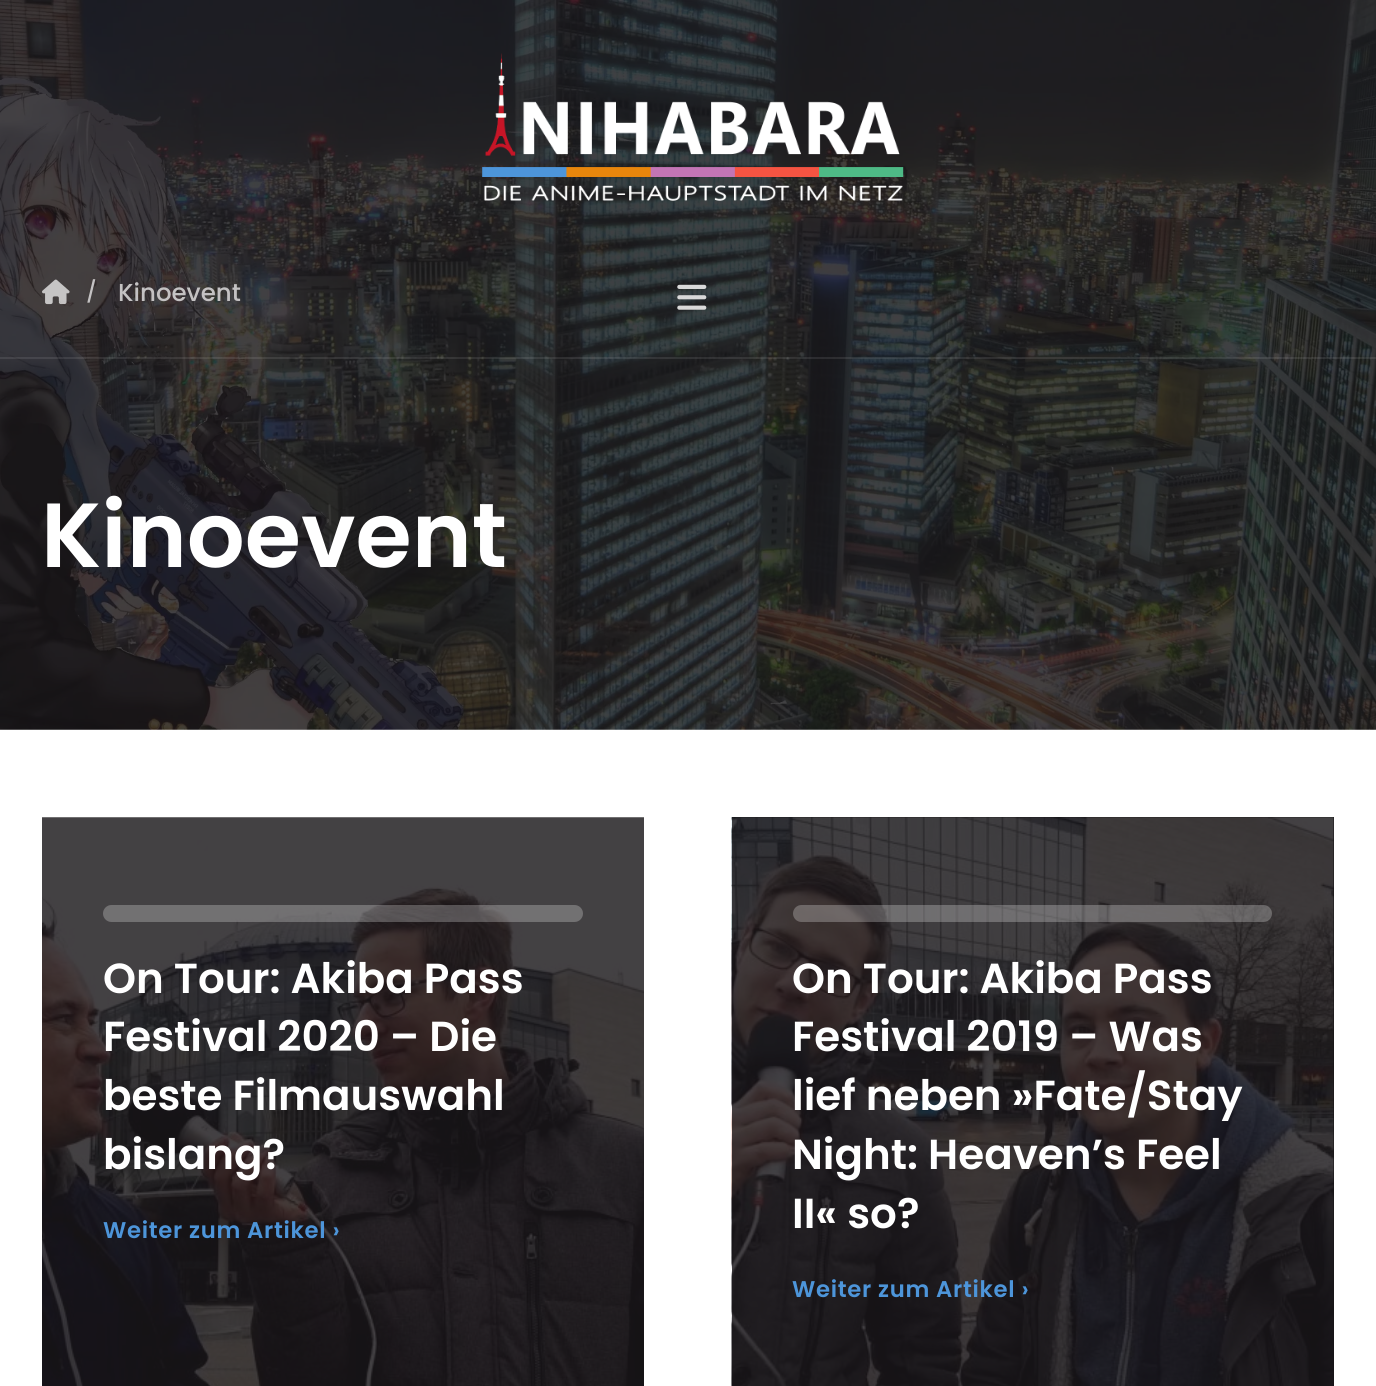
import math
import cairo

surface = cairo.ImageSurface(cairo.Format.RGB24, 1376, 1386)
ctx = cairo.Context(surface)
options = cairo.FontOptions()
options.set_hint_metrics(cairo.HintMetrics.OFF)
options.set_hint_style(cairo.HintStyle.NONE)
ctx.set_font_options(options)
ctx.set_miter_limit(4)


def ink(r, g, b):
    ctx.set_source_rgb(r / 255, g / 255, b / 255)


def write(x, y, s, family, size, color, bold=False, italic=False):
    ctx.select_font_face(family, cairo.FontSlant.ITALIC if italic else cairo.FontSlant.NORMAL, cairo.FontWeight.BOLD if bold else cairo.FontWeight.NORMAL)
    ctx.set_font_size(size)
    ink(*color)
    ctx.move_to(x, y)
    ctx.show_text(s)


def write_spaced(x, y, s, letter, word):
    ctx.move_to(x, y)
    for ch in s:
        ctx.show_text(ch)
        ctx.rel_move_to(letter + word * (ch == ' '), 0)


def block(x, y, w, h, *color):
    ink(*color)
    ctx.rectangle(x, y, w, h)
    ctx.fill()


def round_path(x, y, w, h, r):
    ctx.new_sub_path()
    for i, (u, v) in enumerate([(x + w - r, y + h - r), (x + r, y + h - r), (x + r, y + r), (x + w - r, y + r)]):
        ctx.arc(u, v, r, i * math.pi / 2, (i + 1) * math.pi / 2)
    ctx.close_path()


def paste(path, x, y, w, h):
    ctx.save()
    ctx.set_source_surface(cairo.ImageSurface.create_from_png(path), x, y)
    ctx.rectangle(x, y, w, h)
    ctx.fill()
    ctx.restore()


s1 = dict(family="Poppins Medium", size=21, color=(196, 194, 195))
s2 = dict(family="Poppins Medium", size=24.5, color=(196, 194, 195))
s3 = dict(family="Poppins SemiBold", size=91, color=(255, 255, 255))
s4 = dict(family="Poppins SemiBold", size=42, color=(255, 255, 255))

ink(255, 255, 255)
ctx.paint()
paste("pic3.png", 0, 0, 1376, 730)
paste("pic1.png", 482, 53, 422, 148)
paste("pic2.png", 677, 284, 30, 26)
ctx.set_source_rgba(1, 1, 1, 0.09)
ctx.rectangle(0, 357, 1376, 2)
ctx.fill()
paste("pic4.png", 42, 279, 28, 26)
write(86, 299, "/", **s1)
write(118, 301, "Kinoevent", **s2)
write(41, 567, "Kinoevent", **s3)
paste("pic5.png", 42, 817, 602, 569)
ctx.set_source_rgba(1, 1, 1, 0.25)
round_path(103, 905, 480, 17, 8.5)
ctx.fill()
write(103, 993, "On Tour: Akiba Pass", **s4)
write(103, 1051, "Festival 2020 – Die", **s4)
write(103, 1110, "beste Filmauswahl", **s4)
write(103, 1169, "bislang?", **s4)
ctx.set_font_size(22.75)
ink(77, 149, 218)
write_spaced(103, 1238, "Weiter zum Artikel ›", 0.7, 0)
block(732, 817, 602, 569, 21, 19, 21)
paste("pic6.png", 731, 817, 603, 569)
ctx.set_source_rgba(1, 1, 1, 0.25)
round_path(793, 905, 479, 17, 8.5)
ctx.fill()
write(792, 993, "On Tour: Akiba Pass", **s4)
write(792, 1051, "Festival 2019 – Was", **s4)
write(792, 1110, "lief neben »Fate/Stay", **s4)
write(792, 1169, "Night: Heaven’s Feel", **s4)
write(792, 1228, "II« so?", **s4)
ctx.set_font_size(22.75)
ink(77, 149, 218)
write_spaced(792, 1297, "Weiter zum Artikel ›", 0.7, 0)
surface.write_to_png("screenshot.png")
